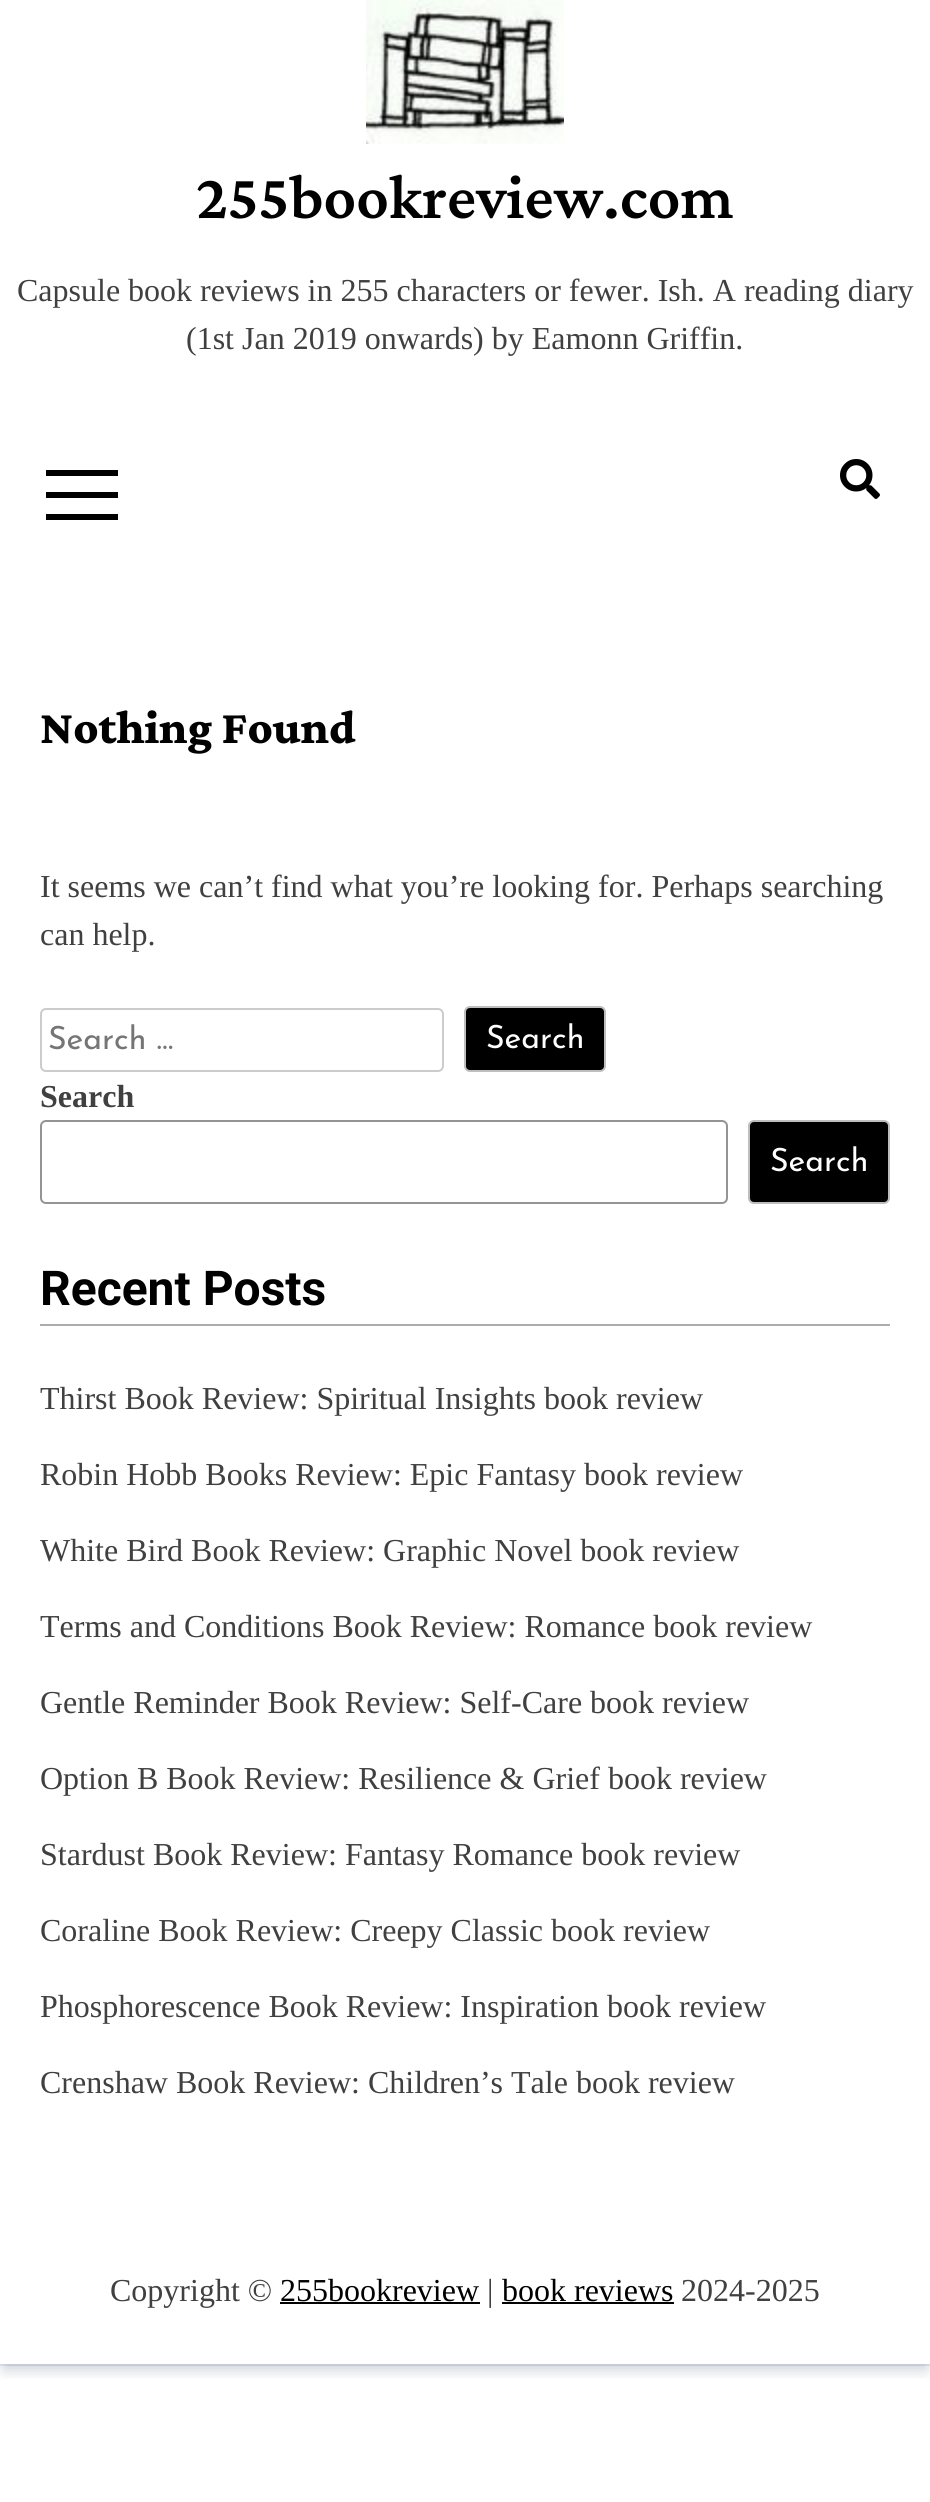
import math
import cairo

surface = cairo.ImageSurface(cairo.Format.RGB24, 930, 2502)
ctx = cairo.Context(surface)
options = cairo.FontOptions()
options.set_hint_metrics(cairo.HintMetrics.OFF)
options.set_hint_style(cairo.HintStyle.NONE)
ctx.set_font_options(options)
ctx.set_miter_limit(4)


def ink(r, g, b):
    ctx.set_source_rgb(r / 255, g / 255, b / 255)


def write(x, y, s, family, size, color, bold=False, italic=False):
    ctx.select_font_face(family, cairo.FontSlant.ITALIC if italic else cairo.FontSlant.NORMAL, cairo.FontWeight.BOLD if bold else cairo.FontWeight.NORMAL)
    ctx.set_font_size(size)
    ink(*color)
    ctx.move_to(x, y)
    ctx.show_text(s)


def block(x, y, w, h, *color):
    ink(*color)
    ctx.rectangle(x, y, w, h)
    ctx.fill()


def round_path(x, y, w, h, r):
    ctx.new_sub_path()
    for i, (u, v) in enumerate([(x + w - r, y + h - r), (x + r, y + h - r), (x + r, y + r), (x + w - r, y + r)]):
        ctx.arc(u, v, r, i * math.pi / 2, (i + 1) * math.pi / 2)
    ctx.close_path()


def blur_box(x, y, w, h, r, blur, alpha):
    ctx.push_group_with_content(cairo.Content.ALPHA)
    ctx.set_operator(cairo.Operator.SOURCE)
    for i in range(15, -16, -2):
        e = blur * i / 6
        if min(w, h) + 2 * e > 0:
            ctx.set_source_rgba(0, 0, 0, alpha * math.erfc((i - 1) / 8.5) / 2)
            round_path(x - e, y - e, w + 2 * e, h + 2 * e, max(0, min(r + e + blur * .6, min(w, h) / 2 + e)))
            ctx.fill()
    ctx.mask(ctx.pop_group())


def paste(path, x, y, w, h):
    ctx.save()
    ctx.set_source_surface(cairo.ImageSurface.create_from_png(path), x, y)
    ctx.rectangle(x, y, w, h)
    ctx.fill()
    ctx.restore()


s1 = dict(family="Crimson Pro SemiBold", size=64, color=(0, 0, 0))
s2 = dict(family="Liberation Serif", size=32, color=(64, 64, 64))
s3 = dict(family="Crimson Pro ExtraBold", size=48, color=(0, 0, 0))
s4 = dict(family="Josefin Sans", size=32, color=(117, 117, 117))
s5 = dict(family="Josefin Sans", size=32, color=(255, 255, 255))
s6 = dict(family="Liberation Serif", size=32, color=(64, 64, 64), bold=True)
s7 = dict(family="Roboto", size=48, color=(0, 0, 0), bold=True)
s8 = dict(family="Liberation Serif", size=32, color=(0, 0, 0))

ink(255, 255, 255)
ctx.paint()
ctx.rectangle(-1, -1, 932, 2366)
ink(235, 237, 240)
ctx.stroke()
ctx.save()
ctx.rectangle(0, 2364, 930, 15)
ctx.clip()
ink(9, 30, 66)
blur_box(4, 12, 922, 2356, 0, 8, 0.25)
ctx.restore()
paste("pic1.png", 366, 0, 198, 144)
write(196, 218, "255bookreview.com", **s1)
write(17, 301, "Capsule book reviews in 255 characters or fewer. Ish. A reading diary", **s2)
write(186, 349, "(1st Jan 2019 onwards) by Eamonn Griffin.", **s2)
block(46, 470, 72, 6, 0, 0, 0)
block(46, 492, 72, 6, 0, 0, 0)
block(46, 514, 72, 6, 0, 0, 0)
paste("pic2.png", 840, 459, 40, 40)
write(40, 743, "Nothing Found", **s3)
write(40, 897, "It seems we can’t find what you’re looking for. Perhaps searching", **s2)
write(40, 945, "can help.", **s2)
round_path(41, 1009, 402, 62, 5)
ink(204, 204, 204)
ctx.stroke()
write(48, 1049, "Search …", **s4)
ink(0, 0, 0)
round_path(465, 1007, 140, 64, 5)
ctx.fill_preserve()
ink(190, 190, 190)
ctx.stroke()
write(486, 1048, "Search", **s5)
write(40, 1107, "Search", **s6)
round_path(41, 1121, 686, 82, 5)
ink(148, 148, 148)
ctx.stroke()
ink(0, 0, 0)
round_path(749, 1121, 140, 82, 5)
ctx.fill_preserve()
ink(190, 190, 190)
ctx.stroke()
write(770, 1171, "Search", **s5)
block(40, 1324, 850, 2, 173, 173, 173)
write(40, 1305, "Recent Posts", **s7)
write(40, 1409, "Thirst Book Review: Spiritual Insights book review", **s2)
write(40, 1485, "Robin Hobb Books Review: Epic Fantasy book review", **s2)
write(40, 1561, "White Bird Book Review: Graphic Novel book review", **s2)
write(40, 1637, "Terms and Conditions Book Review: Romance book review", **s2)
write(40, 1713, "Gentle Reminder Book Review: Self-Care book review", **s2)
write(40, 1789, "Option B Book Review: Resilience & Grief book review", **s2)
write(40, 1865, "Stardust Book Review: Fantasy Romance book review", **s2)
write(40, 1941, "Coraline Book Review: Creepy Classic book review", **s2)
write(40, 2017, "Phosphorescence Book Review: Inspiration book review", **s2)
write(40, 2093, "Crenshaw Book Review: Children’s Tale book review", **s2)
write(110, 2301, "Copyright ©", **s2)
write(280, 2301, "255bookreview", **s8)
block(280, 2302, 200, 2, 0, 0, 0)
write(487, 2301, "|", **s2)
write(502, 2301, "book reviews", **s8)
block(502, 2302, 172, 2, 0, 0, 0)
write(681, 2301, "2024-2025", **s2)
surface.write_to_png("screenshot.png")
